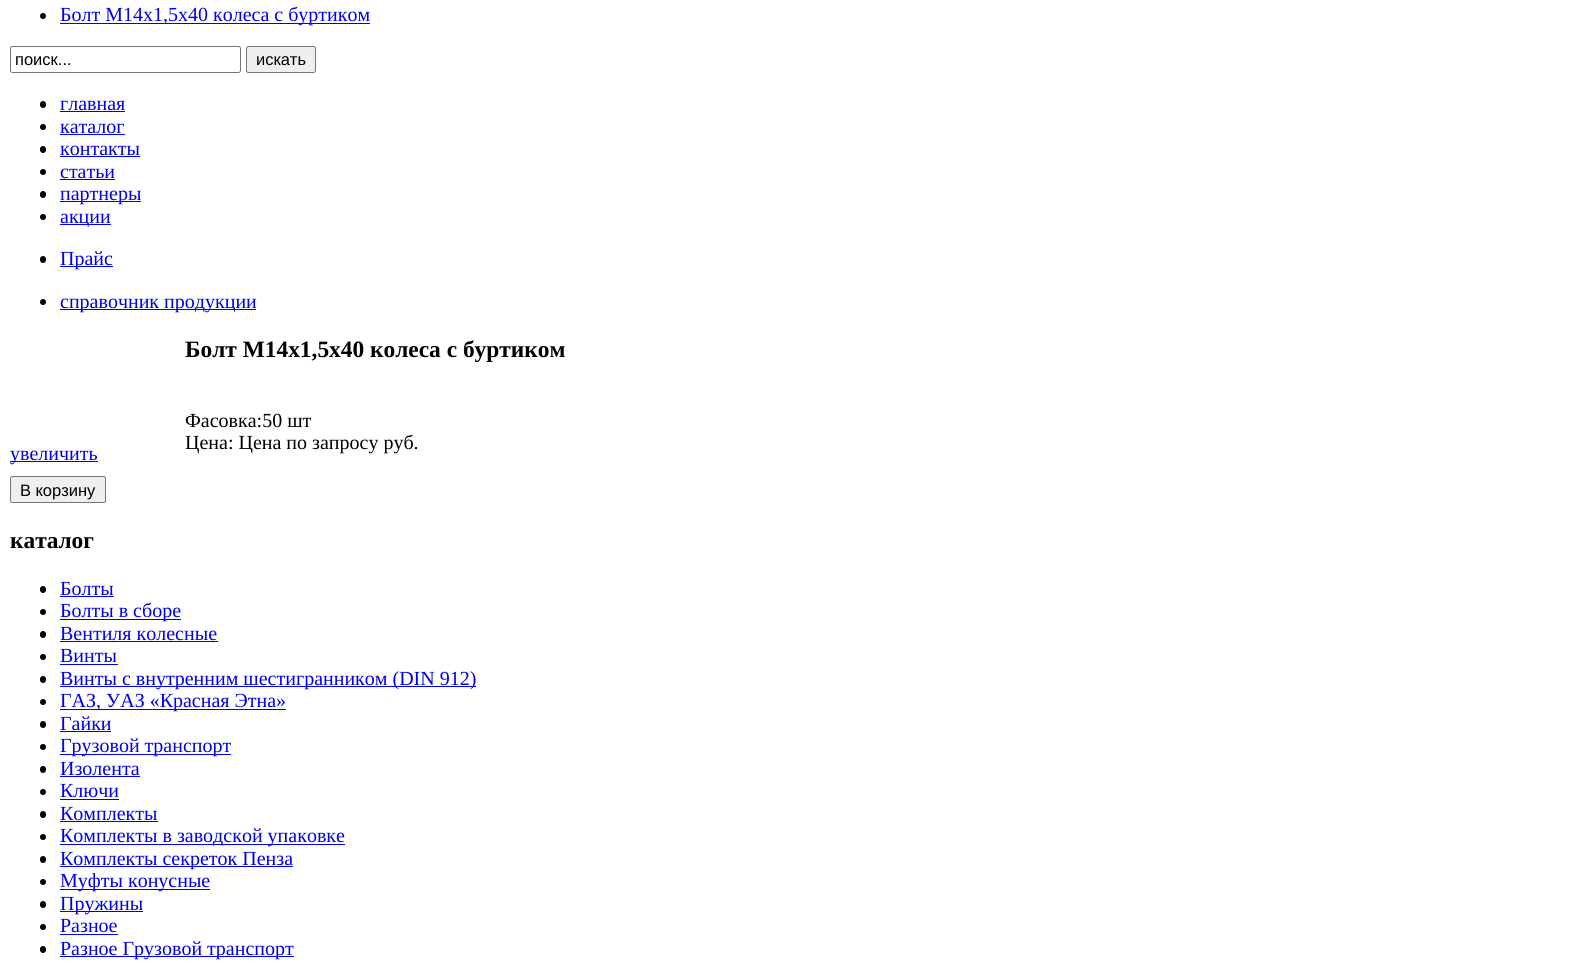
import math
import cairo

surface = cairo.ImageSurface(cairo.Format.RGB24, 1570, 967)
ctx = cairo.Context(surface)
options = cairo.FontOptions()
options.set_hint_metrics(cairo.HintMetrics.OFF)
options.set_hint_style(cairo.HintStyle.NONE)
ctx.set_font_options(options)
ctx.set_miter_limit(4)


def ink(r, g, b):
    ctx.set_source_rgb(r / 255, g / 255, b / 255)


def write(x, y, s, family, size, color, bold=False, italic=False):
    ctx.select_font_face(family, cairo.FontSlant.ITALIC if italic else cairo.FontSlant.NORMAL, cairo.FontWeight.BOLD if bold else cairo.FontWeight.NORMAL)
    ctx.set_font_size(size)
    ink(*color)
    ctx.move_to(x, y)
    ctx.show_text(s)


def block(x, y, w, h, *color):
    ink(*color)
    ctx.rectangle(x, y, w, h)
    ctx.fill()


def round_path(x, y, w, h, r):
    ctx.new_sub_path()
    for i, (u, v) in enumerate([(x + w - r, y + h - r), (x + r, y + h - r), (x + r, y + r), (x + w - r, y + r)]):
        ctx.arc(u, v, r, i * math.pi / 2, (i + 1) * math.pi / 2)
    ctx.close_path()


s1 = dict(family="Liberation Serif", size=20, color=(0, 0, 238))
s2 = dict(family="Liberation Sans", size=16.5, color=(0, 0, 0))
s3 = dict(family="Liberation Serif", size=23.4, color=(0, 0, 0), bold=True)
s4 = dict(family="Liberation Serif", size=20, color=(0, 0, 0))

ink(255, 255, 255)
ctx.paint()
ink(0, 0, 0)
ctx.arc(43, 16, 3, 0, 2 * math.pi)
ctx.fill()
block(60, 23, 310, 1, 0, 0, 238)
write(60, 21, "Болт М14х1,5х40 колеса с буртиком", **s1)
round_path(10.5, 46.5, 230, 26, 2)
ink(118, 118, 118)
ctx.set_line_width(1)
ctx.stroke()
write(15, 65, "поиск...", **s2)
ink(239, 239, 239)
round_path(246.5, 46.5, 69, 26, 2)
ctx.fill_preserve()
ink(118, 118, 118)
ctx.stroke()
write(256, 65, "искать", **s2)
round_path(40, 101, 6, 7, 3)
ctx.fill()
write(60, 110, "главная", **s1)
block(60, 111, 65, 1, 0, 0, 238)
ink(0, 0, 0)
ctx.new_path()
ctx.arc(43, 127, 3, 0, 2 * math.pi)
ctx.fill()
write(60, 133, "каталог", **s1)
block(60, 134, 65, 1, 0, 0, 238)
ink(0, 0, 0)
round_path(40, 146, 6, 7, 3)
ctx.fill()
write(60, 155, "контакты", **s1)
block(60, 156, 80, 1, 0, 0, 238)
ink(0, 0, 0)
ctx.new_path()
ctx.arc(43, 172, 3, 0, 2 * math.pi)
ctx.fill()
write(60, 178, "статьи", **s1)
block(60, 179, 55, 1, 0, 0, 238)
ink(0, 0, 0)
round_path(40, 191, 6, 7, 3)
ctx.fill()
block(60, 201, 81, 1, 0, 0, 238)
write(60, 200, "партнеры", **s1)
ink(0, 0, 0)
ctx.new_path()
ctx.arc(43, 217, 3, 0, 2 * math.pi)
ctx.fill()
block(60, 224, 51, 1, 0, 0, 238)
write(60, 223, "акции", **s1)
ink(0, 0, 0)
round_path(40, 256, 6, 7, 3)
ctx.fill()
block(60, 266, 53, 1, 0, 0, 238)
write(60, 265, "Прайс", **s1)
ink(0, 0, 0)
ctx.new_path()
ctx.arc(43, 302, 3, 0, 2 * math.pi)
ctx.fill()
block(60, 309, 196, 1, 0, 0, 238)
write(60, 308, "справочник продукции", **s1)
write(185, 357, "Болт М14х1,5х40 колеса с буртиком", **s3)
write(185, 427, "Фасовка:50 шт", **s4)
write(185, 449, "Цена: Цена по запросу руб.", **s4)
block(10, 461, 88, 1, 0, 0, 238)
write(10, 460, "увеличить", **s1)
ink(239, 239, 239)
round_path(10.5, 476.5, 95, 26, 2)
ctx.fill_preserve()
ink(118, 118, 118)
ctx.stroke()
write(20, 496, "В корзину", **s2)
write(10, 548, "каталог", **s3)
round_path(40, 586, 6, 7, 3)
ctx.fill()
write(60, 595, "Болты", **s1)
block(60, 596, 54, 1, 0, 0, 238)
ink(0, 0, 0)
ctx.new_path()
ctx.arc(43, 612, 3, 0, 2 * math.pi)
ctx.fill()
block(60, 619, 121, 1, 0, 0, 238)
write(60, 617, "Болты в сборе", **s1)
ink(0, 0, 0)
round_path(40, 631, 6, 7, 3)
ctx.fill()
write(60, 640, "Вентиля колесные", **s1)
block(60, 641, 158, 1, 0, 0, 238)
ink(0, 0, 0)
ctx.new_path()
ctx.arc(43, 657, 3, 0, 2 * math.pi)
ctx.fill()
write(60, 662, "Винты", **s1)
block(60, 664, 58, 1, 0, 0, 238)
ink(0, 0, 0)
round_path(40, 676, 6, 7, 3)
ctx.fill()
block(60, 686, 416, 1, 0, 0, 238)
write(60, 685, "Винты с внутренним шестигранником (DIN 912)", **s1)
ink(0, 0, 0)
ctx.new_path()
ctx.arc(43, 702, 3, 0, 2 * math.pi)
ctx.fill()
block(60, 709, 226, 1, 0, 0, 238)
write(60, 707, "ГАЗ, УАЗ «Красная Этна»", **s1)
ink(0, 0, 0)
round_path(40, 721, 6, 7, 3)
ctx.fill()
write(60, 730, "Гайки", **s1)
block(60, 731, 51, 1, 0, 0, 238)
ink(0, 0, 0)
ctx.new_path()
ctx.arc(43, 747, 3, 0, 2 * math.pi)
ctx.fill()
block(60, 754, 171, 1, 0, 0, 238)
write(60, 752, "Грузовой транспорт", **s1)
ink(0, 0, 0)
round_path(40, 766, 6, 7, 3)
ctx.fill()
write(60, 775, "Изолента", **s1)
block(60, 776, 80, 1, 0, 0, 238)
ink(0, 0, 0)
ctx.new_path()
ctx.arc(43, 792, 3, 0, 2 * math.pi)
ctx.fill()
write(60, 797, "Ключи", **s1)
block(60, 799, 59, 1, 0, 0, 238)
ink(0, 0, 0)
round_path(40, 811, 6, 7, 3)
ctx.fill()
write(60, 820, "Комплекты", **s1)
block(60, 821, 98, 1, 0, 0, 238)
ink(0, 0, 0)
ctx.new_path()
ctx.arc(43, 837, 3, 0, 2 * math.pi)
ctx.fill()
block(60, 844, 285, 1, 0, 0, 238)
write(60, 842, "Комплекты в заводской упаковке", **s1)
ink(0, 0, 0)
round_path(40, 856, 6, 7, 3)
ctx.fill()
block(60, 866, 233, 1, 0, 0, 238)
write(60, 865, "Комплекты секреток Пенза", **s1)
ink(0, 0, 0)
ctx.new_path()
ctx.arc(43, 882, 3, 0, 2 * math.pi)
ctx.fill()
block(60, 889, 150, 1, 0, 0, 238)
write(60, 887, "Муфты конусные", **s1)
ink(0, 0, 0)
round_path(40, 901, 6, 7, 3)
ctx.fill()
block(60, 911, 83, 1, 0, 0, 238)
write(60, 910, "Пружины", **s1)
ink(0, 0, 0)
ctx.new_path()
ctx.arc(43, 927, 3, 0, 2 * math.pi)
ctx.fill()
write(60, 932, "Разное", **s1)
block(60, 934, 58, 1, 0, 0, 238)
ink(0, 0, 0)
round_path(40, 946, 6, 7, 3)
ctx.fill()
block(60, 956, 234, 1, 0, 0, 238)
write(60, 955, "Разное Грузовой транспорт", **s1)
surface.write_to_png("screenshot.png")
